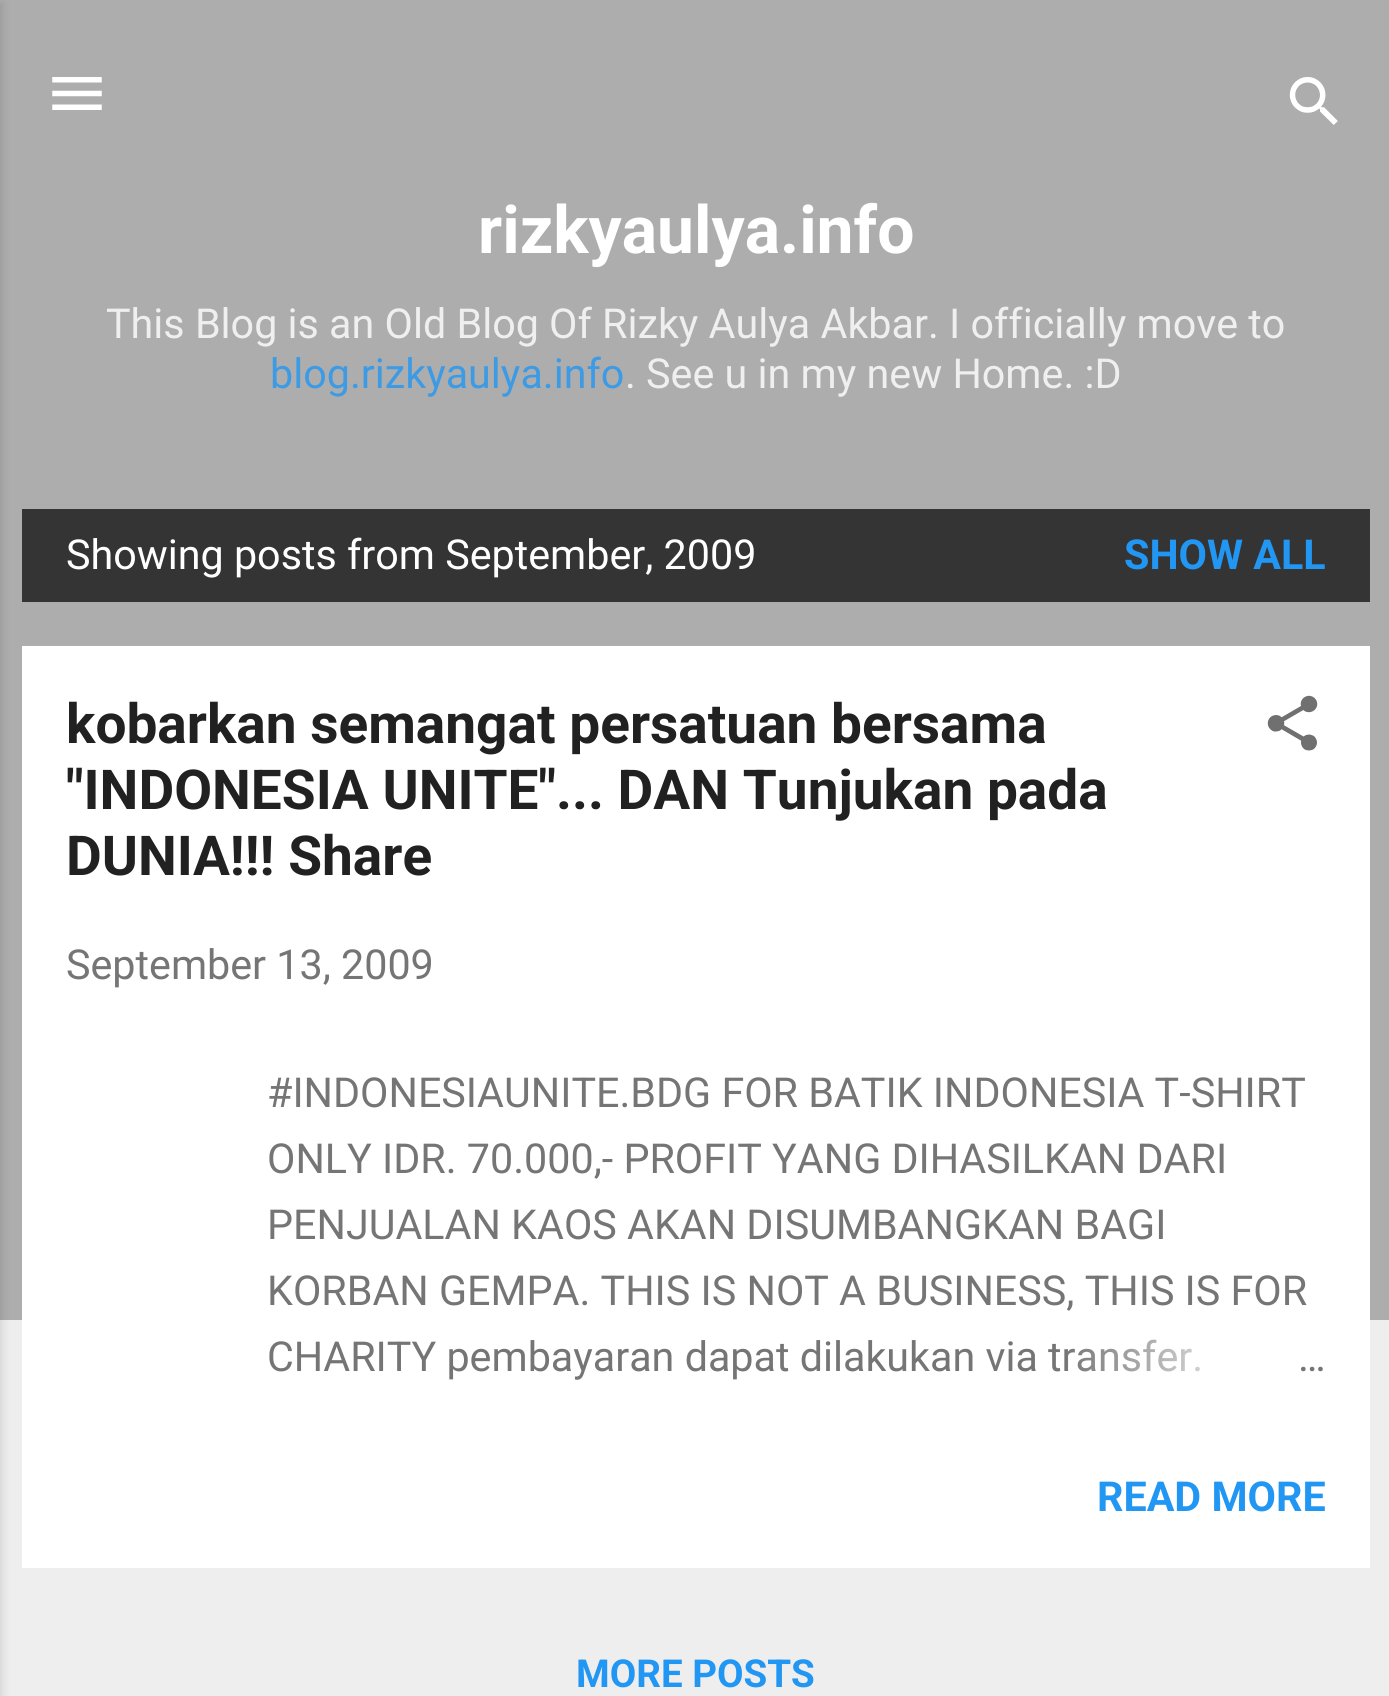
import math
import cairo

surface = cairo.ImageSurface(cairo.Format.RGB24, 1389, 1696)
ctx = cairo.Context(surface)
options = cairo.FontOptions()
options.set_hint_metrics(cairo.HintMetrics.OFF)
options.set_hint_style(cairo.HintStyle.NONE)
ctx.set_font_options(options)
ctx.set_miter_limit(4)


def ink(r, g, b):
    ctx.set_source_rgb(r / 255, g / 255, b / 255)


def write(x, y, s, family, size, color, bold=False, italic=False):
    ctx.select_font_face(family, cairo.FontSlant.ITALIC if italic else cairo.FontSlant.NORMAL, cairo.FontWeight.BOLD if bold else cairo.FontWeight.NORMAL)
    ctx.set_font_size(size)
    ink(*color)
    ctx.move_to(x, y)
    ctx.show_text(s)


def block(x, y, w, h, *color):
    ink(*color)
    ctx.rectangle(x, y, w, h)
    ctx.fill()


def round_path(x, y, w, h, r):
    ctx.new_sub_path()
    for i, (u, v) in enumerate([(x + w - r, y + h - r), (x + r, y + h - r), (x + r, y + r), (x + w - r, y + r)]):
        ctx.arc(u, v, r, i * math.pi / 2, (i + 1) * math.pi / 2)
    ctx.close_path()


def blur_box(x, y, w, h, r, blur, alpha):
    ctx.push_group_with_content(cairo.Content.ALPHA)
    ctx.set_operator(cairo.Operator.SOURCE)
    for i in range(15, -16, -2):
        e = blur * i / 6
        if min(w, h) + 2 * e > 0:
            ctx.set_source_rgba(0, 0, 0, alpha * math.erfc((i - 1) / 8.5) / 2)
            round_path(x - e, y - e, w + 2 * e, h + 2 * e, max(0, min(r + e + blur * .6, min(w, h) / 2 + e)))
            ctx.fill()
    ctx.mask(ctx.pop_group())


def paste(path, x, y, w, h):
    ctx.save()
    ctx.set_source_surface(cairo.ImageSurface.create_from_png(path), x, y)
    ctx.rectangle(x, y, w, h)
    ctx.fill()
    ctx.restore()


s1 = dict(family="Roboto", size=66, color=(255, 255, 255), bold=True)
s2 = dict(family="Roboto", size=41.25, color=(239, 239, 239))
s3 = dict(family="Roboto", size=41.25, color=(61, 155, 229))
s4 = dict(family="Roboto", size=41.25, color=(255, 255, 255))
s5 = dict(family="Roboto", size=41.25, color=(33, 150, 243), bold=True)
s6 = dict(family="Roboto", size=55, color=(33, 33, 33), bold=True)
s7 = dict(family="Roboto", size=41.25, color=(117, 117, 117))
s8 = dict(family="Roboto", size=38.5, color=(33, 150, 243), bold=True)

ink(238, 238, 238)
ctx.paint()
block(0, 0, 1389, 1320, 173, 173, 173)
ink(0, 0, 0)
blur_box(-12, 3, 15, 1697, 0, 4, 0.1)
paste("pic1.png", 52, 77, 50, 33)
paste("pic2.png", 1289, 77, 49, 48)
write(478, 253, "rizkyaulya.info", **s1)
write(106, 338, "This Blog is an Old Blog Of Rizky Aulya Akbar. I officially move to", **s2)
write(270, 388, "blog.rizkyaulya.info", **s3)
write(625, 388, ". See u in my new Home. :D", **s2)
block(22, 509, 1348, 93, 52, 52, 52)
write(66, 569, "Showing posts from September, 2009", **s4)
write(1124, 569, "SHOW ALL", **s5)
block(22, 646, 1348, 922, 255, 255, 255)
write(66, 743, "kobarkan semangat persatuan bersama", **s6)
write(66, 809, "\"INDONESIA UNITE\"... DAN Tunjukan pada", **s6)
write(66, 875, "DUNIA!!! Share", **s6)
paste("pic3.png", 1267, 695, 51, 56)
write(66, 979, "September 13, 2009", **s7)
write(267, 1107, "#INDONESIAUNITE.BDG FOR BATIK INDONESIA T-SHIRT", **s7)
write(267, 1173, "ONLY IDR. 70.000,- PROFIT YANG DIHASILKAN DARI", **s7)
write(267, 1239, "PENJUALAN KAOS AKAN DISUMBANGKAN BAGI", **s7)
write(267, 1305, "KORBAN GEMPA. THIS IS NOT A BUSINESS, THIS IS FOR", **s7)
write(267, 1371, "CHARITY pembayaran dapat dilakukan via transfer.", **s7)
gradient = cairo.LinearGradient(1326, 1359, 1062, 1359)
gradient.add_color_stop_rgba(0, 1, 1, 1, 1)
gradient.add_color_stop_rgba(0.2, 1, 1, 1, 1)
gradient.add_color_stop_rgba(1, 1, 1, 1, 0)
ctx.set_source(gradient)
ctx.rectangle(1067, 1339, 133, 33)
ctx.fill()
write(1298, 1371, "…", **s7)
write(1097, 1511, "READ MORE", **s5)
write(576, 1687, "MORE POSTS", **s8)
surface.write_to_png("screenshot.png")
